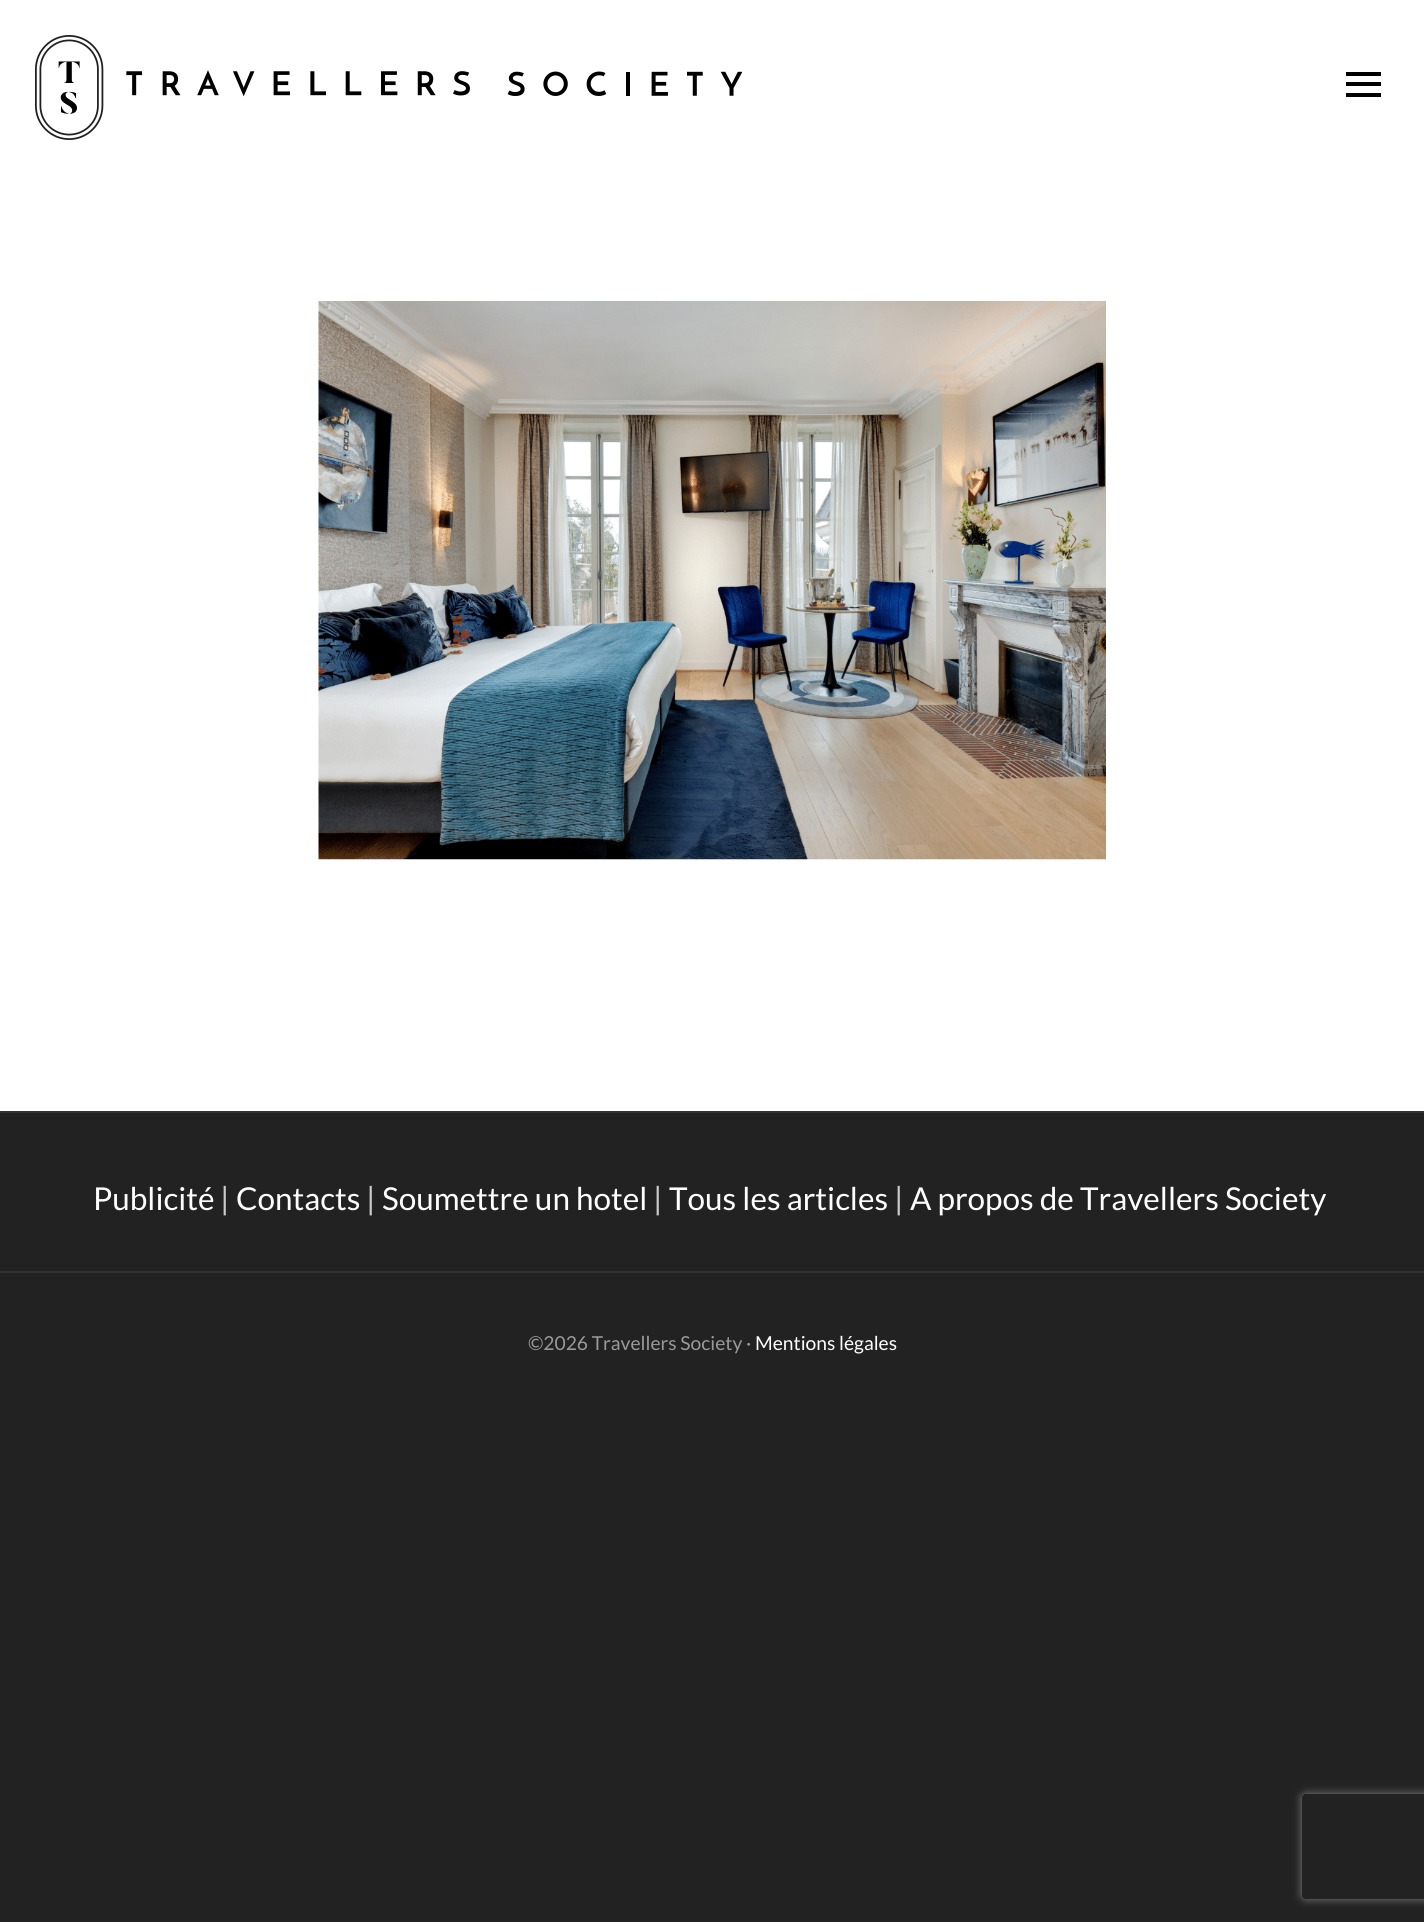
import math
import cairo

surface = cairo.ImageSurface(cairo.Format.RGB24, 1424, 1922)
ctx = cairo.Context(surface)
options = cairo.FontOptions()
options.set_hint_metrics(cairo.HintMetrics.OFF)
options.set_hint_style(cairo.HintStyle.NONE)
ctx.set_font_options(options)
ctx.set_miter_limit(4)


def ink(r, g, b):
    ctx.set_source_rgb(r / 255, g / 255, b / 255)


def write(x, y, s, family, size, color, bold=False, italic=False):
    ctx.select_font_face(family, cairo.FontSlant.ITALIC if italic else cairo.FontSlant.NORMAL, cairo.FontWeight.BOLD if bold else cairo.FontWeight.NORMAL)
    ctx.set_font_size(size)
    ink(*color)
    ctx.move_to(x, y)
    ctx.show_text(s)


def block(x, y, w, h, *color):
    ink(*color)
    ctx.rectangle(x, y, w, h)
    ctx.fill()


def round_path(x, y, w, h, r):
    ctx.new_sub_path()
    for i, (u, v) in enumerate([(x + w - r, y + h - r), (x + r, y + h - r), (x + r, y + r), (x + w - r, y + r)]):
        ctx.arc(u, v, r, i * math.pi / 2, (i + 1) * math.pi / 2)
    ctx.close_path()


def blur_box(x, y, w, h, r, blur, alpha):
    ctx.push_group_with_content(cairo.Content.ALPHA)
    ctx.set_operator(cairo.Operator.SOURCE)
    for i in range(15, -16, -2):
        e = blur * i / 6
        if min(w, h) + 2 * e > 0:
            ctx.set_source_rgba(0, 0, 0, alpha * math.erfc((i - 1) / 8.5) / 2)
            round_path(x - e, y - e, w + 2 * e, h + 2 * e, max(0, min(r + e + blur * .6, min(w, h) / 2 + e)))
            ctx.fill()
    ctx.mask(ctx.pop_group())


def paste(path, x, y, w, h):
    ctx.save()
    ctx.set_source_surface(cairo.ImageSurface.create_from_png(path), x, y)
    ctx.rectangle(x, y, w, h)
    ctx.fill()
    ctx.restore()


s1 = dict(family="Lato", size=31.5, color=(255, 255, 255))
s2 = dict(family="Lato", size=31.5, color=(204, 204, 204))
s3 = dict(family="Lato", size=19.25, color=(153, 153, 153))
s4 = dict(family="Lato", size=19.25, color=(255, 255, 255))

ink(34, 34, 34)
ctx.paint()
block(0, 0, 1424, 1111, 255, 255, 255)
paste("pic1.png", 318, 301, 788, 559)
paste("pic2.png", 35, 35, 707, 105)
block(1346, 82, 35, 4, 0, 0, 0)
block(1346, 72, 35, 4, 0, 0, 0)
block(1346, 93, 35, 4, 0, 0, 0)
block(0, 1111, 1424, 2, 51, 51, 51)
write(93, 1210, "Publicité", **s1)
write(220, 1210, "|", **s2)
write(236, 1210, "Contacts", **s1)
write(366, 1210, "|", **s2)
write(382, 1210, "Soumettre un hotel", **s1)
write(653, 1210, "|", **s2)
write(669, 1210, "Tous les articles", **s1)
write(894, 1210, "|", **s2)
write(910, 1210, "A propos de Travellers Society", **s1)
block(0, 1271, 1424, 2, 51, 51, 51)
write(528, 1350, "©2026 Travellers Society ·", **s3)
write(755, 1350, "Mentions légales", **s4)
ctx.save()
ctx.set_fill_rule(cairo.FillRule.EVEN_ODD)
ctx.new_path()
ctx.move_to(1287, 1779)
ctx.line_to(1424, 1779)
ctx.line_to(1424, 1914)
ctx.line_to(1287, 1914)
ctx.close_path()
ctx.move_to(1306, 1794)
ctx.line_to(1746, 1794)
ctx.curve_to(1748, 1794, 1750, 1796, 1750, 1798)
ctx.line_to(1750, 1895)
ctx.curve_to(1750, 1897, 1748, 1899, 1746, 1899)
ctx.line_to(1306, 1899)
ctx.curve_to(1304, 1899, 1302, 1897, 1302, 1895)
ctx.line_to(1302, 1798)
ctx.curve_to(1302, 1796, 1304, 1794, 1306, 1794)
ctx.close_path()
ctx.clip()
ink(128, 128, 128)
blur_box(1302, 1794, 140, 105, 4, 4.5, 1)
ctx.restore()
surface.write_to_png("screenshot.png")
